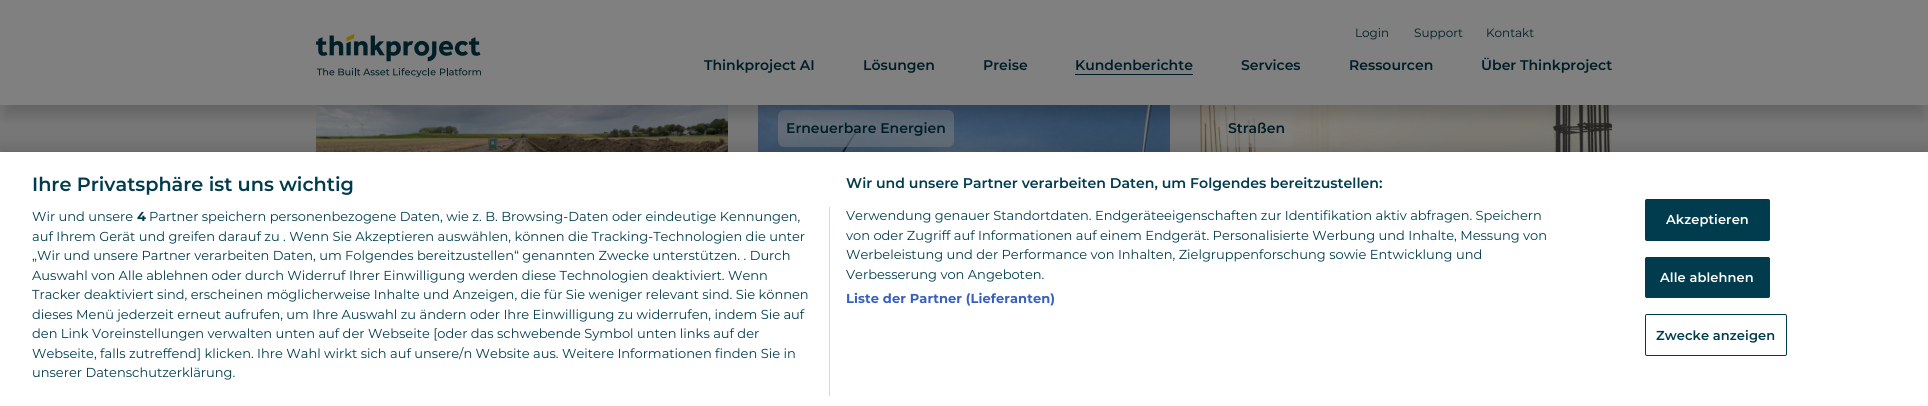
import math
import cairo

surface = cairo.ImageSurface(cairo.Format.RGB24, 1928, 406)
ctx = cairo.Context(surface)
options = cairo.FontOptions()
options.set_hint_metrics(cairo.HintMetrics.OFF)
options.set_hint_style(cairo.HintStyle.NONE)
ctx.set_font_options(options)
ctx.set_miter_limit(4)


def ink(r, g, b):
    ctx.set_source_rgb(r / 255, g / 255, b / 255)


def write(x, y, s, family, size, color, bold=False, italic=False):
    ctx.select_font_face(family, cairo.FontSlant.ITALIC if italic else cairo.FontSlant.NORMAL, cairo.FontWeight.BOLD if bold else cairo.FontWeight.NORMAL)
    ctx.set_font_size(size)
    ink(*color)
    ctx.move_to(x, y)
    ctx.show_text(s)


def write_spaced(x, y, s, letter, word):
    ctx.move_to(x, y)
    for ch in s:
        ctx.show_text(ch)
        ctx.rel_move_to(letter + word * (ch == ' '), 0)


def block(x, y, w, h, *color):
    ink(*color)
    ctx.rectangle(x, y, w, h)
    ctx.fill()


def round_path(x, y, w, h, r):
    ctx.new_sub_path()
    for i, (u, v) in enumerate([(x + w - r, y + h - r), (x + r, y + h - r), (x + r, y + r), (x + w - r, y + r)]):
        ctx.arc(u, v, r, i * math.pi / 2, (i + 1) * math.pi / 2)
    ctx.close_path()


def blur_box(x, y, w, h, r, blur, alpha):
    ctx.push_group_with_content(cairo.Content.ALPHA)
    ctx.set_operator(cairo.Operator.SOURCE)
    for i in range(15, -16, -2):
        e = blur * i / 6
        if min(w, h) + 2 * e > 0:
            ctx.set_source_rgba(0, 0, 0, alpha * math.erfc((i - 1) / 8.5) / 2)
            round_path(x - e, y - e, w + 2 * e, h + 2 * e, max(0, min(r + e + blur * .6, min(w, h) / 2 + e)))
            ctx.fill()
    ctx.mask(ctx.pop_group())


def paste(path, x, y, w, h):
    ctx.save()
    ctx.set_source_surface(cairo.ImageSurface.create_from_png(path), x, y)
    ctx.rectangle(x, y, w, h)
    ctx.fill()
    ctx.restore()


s1 = dict(family="Montserrat", size=12, color=(0, 30, 39))
s2 = dict(family="Montserrat SemiBold", size=14, color=(0, 30, 39))
s3 = dict(family="Montserrat SemiBold", size=19.25, color=(0, 60, 77))
s4 = dict(family="Montserrat SemiBold", size=14.1, color=(0, 60, 77))
s5 = dict(family="Montserrat", size=13, color=(0, 60, 77))
s6 = dict(family="Montserrat", size=13, color=(0, 60, 77), bold=True)

ink(119, 119, 119)
ctx.paint()
paste("pic2.png", 316, 105, 412, 47)
paste("pic3.png", 758, 105, 412, 47)
ctx.set_source_rgba(0.502, 0.502, 0.502, 0.5)
round_path(778, 110, 176, 37, 6)
ctx.fill()
paste("pic4.png", 1200, 105, 412, 47)
round_path(1220, 110, 73, 37, 6)
ctx.fill()
ink(0, 0, 0)
blur_box(4, 18, 1920, 97, 0, 7, 0.16)
block(0, 0, 1928, 105, 128, 128, 128)
paste("pic1.png", 316, 34, 165, 43)
write(1355, 37, "Login", **s1)
write(1414, 37, "Support", **s1)
write(1486, 37, "Kontakt", **s1)
write(704, 70, "Thinkproject AI", **s2)
write(863, 70, "Lösungen", **s2)
write(983, 70, "Preise", **s2)
write(1075, 70, "Kundenberichte", **s2)
block(1075, 74, 118, 1, 0, 30, 39)
write(1241, 70, "Services", **s2)
write(1349, 70, "Ressourcen", **s2)
write(1481, 70, "Über Thinkproject", **s2)
write(786, 133, "Erneuerbare Energien", **s2)
write(1228, 133, "Straßen", **s2)
ink(0, 0, 0)
blur_box(0, 152, 1928, 254, 0, 9, 0.2)
block(0, 152, 1928, 254, 255, 255, 255)
write(32, 191, "Ihre Privatsphäre ist uns wichtig", **s3)
write(846, 188, "Wir und unsere Partner verarbeiten Daten, um Folgendes bereitzustellen:", **s4)
write(846, 220, "Verwendung genauer Standortdaten. Endgeräteeigenschaften zur Identifikation aktiv abfragen. Speichern", **s5)
write(846, 240, "von oder Zugriff auf Informationen auf einem Endgerät. Personalisierte Werbung und Inhalte, Messung von", **s5)
write(846, 259, "Werbeleistung und der Performance von Inhalten, Zielgruppenforschung sowie Entwicklung und", **s5)
write(846, 279, "Verbesserung von Angeboten.", **s5)
ctx.select_font_face("Montserrat", cairo.FontSlant.NORMAL, cairo.FontWeight.BOLD)
ink(56, 96, 190)
write_spaced(846, 303, "Liste der Partner (Lieferanten)", 0.1, 0)
block(829, 207, 1, 189, 216, 216, 216)
write(32, 221, "Wir und unsere", **s5)
write(137, 221, "4", **s6)
write(149, 221, "Partner speichern personenbezogene Daten, wie z. B. Browsing-Daten oder eindeutige Kennungen,", **s5)
write(32, 241, "auf Ihrem Gerät und greifen darauf zu . Wenn Sie Akzeptieren auswählen, können die Tracking-Technologien die unter", **s5)
write(32, 260, "„Wir und unsere Partner verarbeiten Daten, um Folgendes bereitzustellen“ genannten Zwecke unterstützen. . Durch", **s5)
write(32, 280, "Auswahl von Alle ablehnen oder durch Widerruf Ihrer Einwilligung werden diese Technologien deaktiviert. Wenn", **s5)
write(32, 299, "Tracker deaktiviert sind, erscheinen möglicherweise Inhalte und Anzeigen, die für Sie weniger relevant sind. Sie können", **s5)
write(32, 319, "dieses Menü jederzeit erneut aufrufen, um Ihre Auswahl zu ändern oder Ihre Einwilligung zu widerrufen, indem Sie auf", **s5)
write(32, 338, "den Link Voreinstellungen verwalten unten auf der Webseite [oder das schwebende Symbol unten links auf der", **s5)
write(32, 358, "Webseite, falls zutreffend] klicken. Ihre Wahl wirkt sich auf unsere/n Website aus. Weitere Informationen finden Sie in", **s5)
write(32, 377, "unserer Datenschutzerklärung.", **s5)
round_path(1645.5, 199.5, 124, 41, 1.5)
ctx.fill_preserve()
ctx.set_line_width(1)
ctx.stroke()
ctx.select_font_face("Montserrat SemiBold")
ink(255, 255, 255)
write_spaced(1666, 224, "Akzeptieren", 0.1, 0)
ink(0, 60, 77)
round_path(1645.5, 257.5, 124, 40, 1.5)
ctx.fill_preserve()
ctx.stroke()
ink(255, 255, 255)
write_spaced(1660, 282, "Alle ablehnen", 0.1, 0)
round_path(1645.5, 314.5, 141, 41, 1.5)
ink(0, 60, 77)
ctx.stroke()
write_spaced(1656, 340, "Zwecke anzeigen", 0.1, 0)
surface.write_to_png("screenshot.png")
